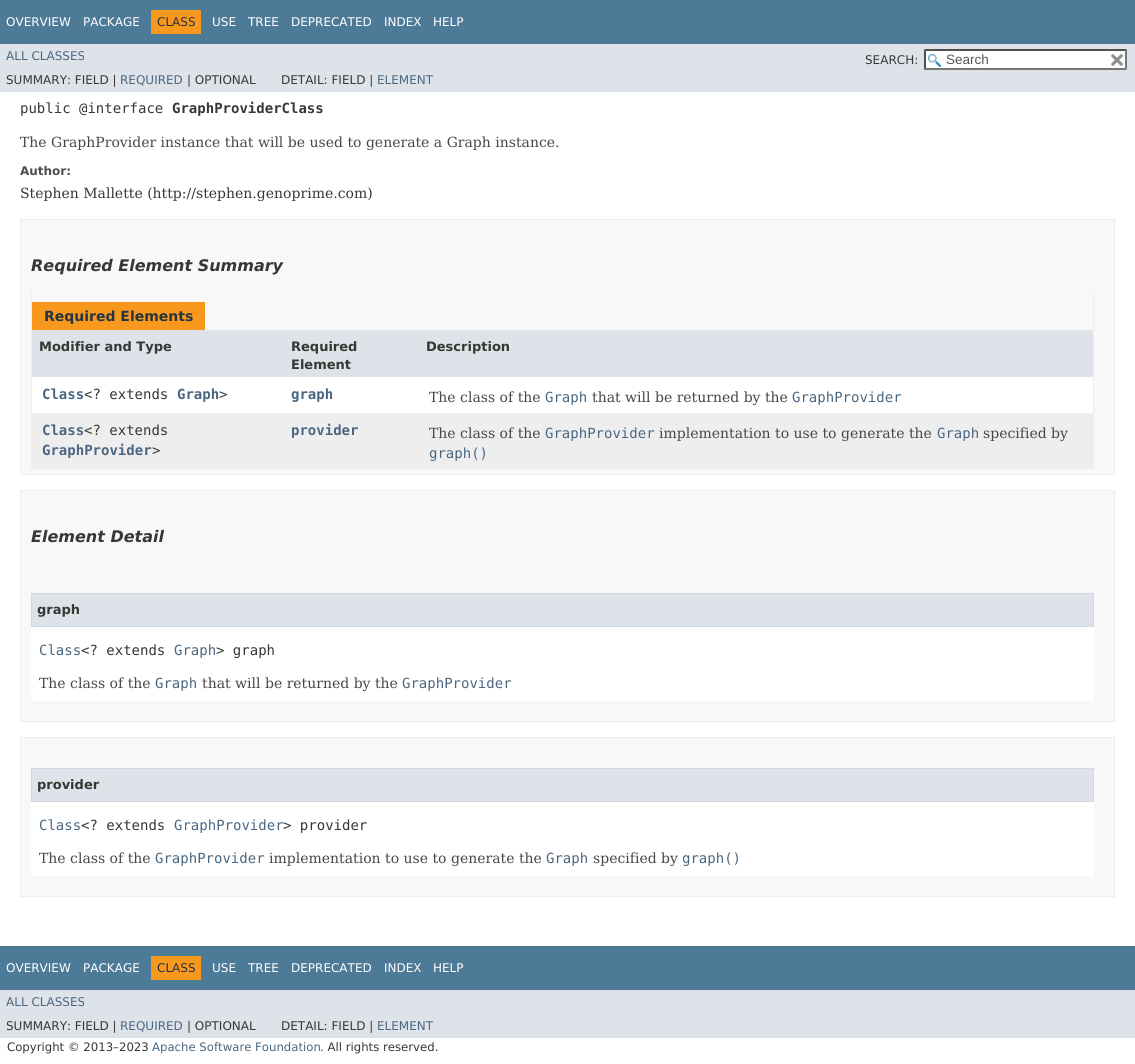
import math
import cairo

surface = cairo.ImageSurface(cairo.Format.RGB24, 1135, 1064)
ctx = cairo.Context(surface)
options = cairo.FontOptions()
options.set_hint_metrics(cairo.HintMetrics.OFF)
options.set_hint_style(cairo.HintStyle.NONE)
ctx.set_font_options(options)
ctx.set_miter_limit(4)


def ink(r, g, b):
    ctx.set_source_rgb(r / 255, g / 255, b / 255)


def write(x, y, s, family, size, color, bold=False, italic=False):
    ctx.select_font_face(family, cairo.FontSlant.ITALIC if italic else cairo.FontSlant.NORMAL, cairo.FontWeight.BOLD if bold else cairo.FontWeight.NORMAL)
    ctx.set_font_size(size)
    ink(*color)
    ctx.move_to(x, y)
    ctx.show_text(s)


def block(x, y, w, h, *color):
    ink(*color)
    ctx.rectangle(x, y, w, h)
    ctx.fill()


def paste(path, x, y, w, h):
    ctx.save()
    ctx.set_source_surface(cairo.ImageSurface.create_from_png(path), x, y)
    ctx.rectangle(x, y, w, h)
    ctx.fill()
    ctx.restore()


s1 = dict(family="DejaVu Sans", size=12, color=(255, 255, 255))
s2 = dict(family="DejaVu Sans", size=12, color=(37, 52, 65))
s3 = dict(family="DejaVu Sans", size=12, color=(74, 103, 130))
s4 = dict(family="DejaVu Sans", size=12, color=(53, 56, 51))
s5 = dict(family="Liberation Sans", size=13.5, color=(84, 84, 84))
s6 = dict(family="DejaVu Sans Mono", size=14, color=(53, 56, 51))
s7 = dict(family="DejaVu Sans Mono", size=14, color=(53, 56, 51), bold=True)
s8 = dict(family="DejaVu Serif", size=14, color=(71, 71, 71))
s9 = dict(family="DejaVu Sans", size=12, color=(78, 78, 78), bold=True)
s10 = dict(family="DejaVu Serif", size=14, color=(53, 56, 51))
s11 = dict(family="DejaVu Sans", size=16, color=(53, 56, 51), bold=True, italic=True)
s12 = dict(family="DejaVu Sans", size=14, color=(37, 52, 65), bold=True)
s13 = dict(family="DejaVu Sans", size=13, color=(53, 56, 51), bold=True)
s14 = dict(family="DejaVu Sans Mono", size=14, color=(74, 103, 130), bold=True)
s15 = dict(family="DejaVu Sans Mono", size=14, color=(74, 103, 130))
s16 = dict(family="DejaVu Sans", size=11.7, color=(53, 56, 51))
s17 = dict(family="DejaVu Sans", size=11.7, color=(74, 103, 130))

ink(255, 255, 255)
ctx.paint()
block(0, 0, 1135, 44, 77, 122, 151)
write(6, 26, "OVERVIEW", **s1)
write(83, 26, "PACKAGE", **s1)
block(151, 10, 50, 24, 248, 152, 29)
write(157, 26, "CLASS", **s2)
write(212, 26, "USE", **s1)
write(248, 26, "TREE", **s1)
write(291, 26, "DEPRECATED", **s1)
write(384, 26, "INDEX", **s1)
write(433, 26, "HELP", **s1)
block(0, 44, 1135, 48, 222, 227, 233)
write(6, 60, "ALL CLASSES", **s3)
write(865, 64, "SEARCH:", **s4)
block(924, 49, 203, 21, 255, 255, 255)
paste("pic1.png", 928, 54, 13, 13)
ink(79, 79, 79)
ctx.new_path()
ctx.move_to(924, 49)
ctx.line_to(1127, 49)
ctx.line_to(1125, 51)
ctx.line_to(926, 51)
ctx.close_path()
ctx.fill()
ink(118, 118, 118)
ctx.new_path()
ctx.move_to(1127, 49)
ctx.line_to(1127, 70)
ctx.line_to(1125, 68)
ctx.line_to(1125, 51)
ctx.close_path()
ctx.fill()
ctx.new_path()
ctx.move_to(1127, 70)
ctx.line_to(924, 70)
ctx.line_to(926, 68)
ctx.line_to(1125, 68)
ctx.close_path()
ctx.fill()
ink(79, 79, 79)
ctx.new_path()
ctx.move_to(924, 70)
ctx.line_to(924, 49)
ctx.line_to(926, 51)
ctx.line_to(926, 68)
ctx.close_path()
ctx.fill()
write(946, 64, "Search", **s5)
paste("pic2.png", 1110, 54, 14, 12)
write(6, 84, "SUMMARY: FIELD |", **s4)
write(120, 84, "REQUIRED", **s3)
write(187, 84, "| OPTIONAL", **s4)
write(281, 84, "DETAIL: FIELD |", **s4)
write(377, 84, "ELEMENT", **s3)
write(20, 113, "public @interface", **s6)
write(172, 113, "GraphProviderClass", **s7)
write(20, 147, "The GraphProvider instance that will be used to generate a Graph instance.", **s8)
write(20, 175, "Author:", **s9)
write(20, 198, "Stephen Mallette (http://stephen.genoprime.com)", **s10)
ink(248, 248, 248)
ctx.rectangle(20.5, 219.5, 1094, 255)
ctx.fill_preserve()
ink(237, 237, 237)
ctx.set_line_width(1)
ctx.stroke()
write(31, 271, "Required Element Summary", **s11)
block(1093, 292, 1, 177, 238, 238, 238)
block(31, 468, 1063, 1, 238, 238, 238)
block(31, 292, 1, 177, 238, 238, 238)
block(32, 302, 173, 28, 248, 152, 29)
write(44, 321, "Required Elements", **s12)
block(32, 330, 1061, 47, 222, 227, 233)
write(39, 351, "Modifier and Type", **s13)
write(291, 351, "Required", **s13)
write(291, 369, "Element", **s13)
write(426, 351, "Description", **s13)
block(32, 377, 1061, 36, 255, 255, 255)
write(42, 399, "Class", **s14)
write(84, 399, "<? extends", **s6)
write(177, 399, "Graph", **s14)
write(219, 399, ">", **s6)
write(291, 399, "graph", **s14)
write(429, 402, "The class of the", **s8)
write(545, 402, "Graph", **s15)
write(592, 402, "that will be returned by the", **s8)
write(792, 402, "GraphProvider", **s15)
block(32, 413, 1061, 55, 238, 238, 239)
write(42, 435, "Class", **s14)
write(84, 435, "<? extends", **s6)
write(42, 455, "GraphProvider", **s14)
write(152, 455, ">", **s6)
write(291, 435, "provider", **s14)
write(429, 438, "The class of the", **s8)
write(545, 438, "GraphProvider", **s15)
write(659, 438, "implementation to use to generate the", **s8)
write(937, 438, "Graph", **s15)
write(983, 438, "specified by", **s8)
write(429, 458, "graph()", **s15)
ink(248, 248, 248)
ctx.rectangle(20.5, 490.5, 1094, 231)
ctx.fill_preserve()
ink(237, 237, 237)
ctx.stroke()
write(31, 542, "Element Detail", **s11)
block(31, 627, 1063, 74, 255, 255, 255)
ink(222, 227, 233)
ctx.rectangle(31.5, 593.5, 1062, 33)
ctx.fill_preserve()
ink(208, 217, 224)
ctx.stroke()
write(37, 614, "graph", **s13)
write(39, 655, "Class", **s15)
write(81, 655, "<? extends", **s6)
write(174, 655, "Graph", **s15)
write(216, 655, "> graph", **s6)
write(39, 688, "The class of the", **s8)
write(155, 688, "Graph", **s15)
write(202, 688, "that will be returned by the", **s8)
write(402, 688, "GraphProvider", **s15)
ink(248, 248, 248)
ctx.rectangle(20.5, 737.5, 1094, 159)
ctx.fill_preserve()
ink(237, 237, 237)
ctx.stroke()
block(31, 802, 1063, 74, 255, 255, 255)
ink(222, 227, 233)
ctx.rectangle(31.5, 768.5, 1062, 33)
ctx.fill_preserve()
ink(208, 217, 224)
ctx.stroke()
write(37, 789, "provider", **s13)
write(39, 830, "Class", **s15)
write(81, 830, "<? extends", **s6)
write(174, 830, "GraphProvider", **s15)
write(283, 830, "> provider", **s6)
write(39, 863, "The class of the", **s8)
write(155, 863, "GraphProvider", **s15)
write(269, 863, "implementation to use to generate the", **s8)
write(546, 863, "Graph", **s15)
write(593, 863, "specified by", **s8)
write(682, 863, "graph()", **s15)
block(0, 946, 1135, 44, 77, 122, 151)
write(6, 972, "OVERVIEW", **s1)
write(83, 972, "PACKAGE", **s1)
block(151, 956, 50, 24, 248, 152, 29)
write(157, 972, "CLASS", **s2)
write(212, 972, "USE", **s1)
write(248, 972, "TREE", **s1)
write(291, 972, "DEPRECATED", **s1)
write(384, 972, "INDEX", **s1)
write(433, 972, "HELP", **s1)
block(0, 990, 1135, 48, 222, 227, 233)
write(6, 1006, "ALL CLASSES", **s3)
write(6, 1030, "SUMMARY: FIELD |", **s4)
write(120, 1030, "REQUIRED", **s3)
write(187, 1030, "| OPTIONAL", **s4)
write(281, 1030, "DETAIL: FIELD |", **s4)
write(377, 1030, "ELEMENT", **s3)
write(7, 1051, "Copyright © 2013–2023", **s16)
write(152, 1051, "Apache Software Foundation", **s17)
write(320, 1051, ". All rights reserved.", **s16)
surface.write_to_png("screenshot.png")
